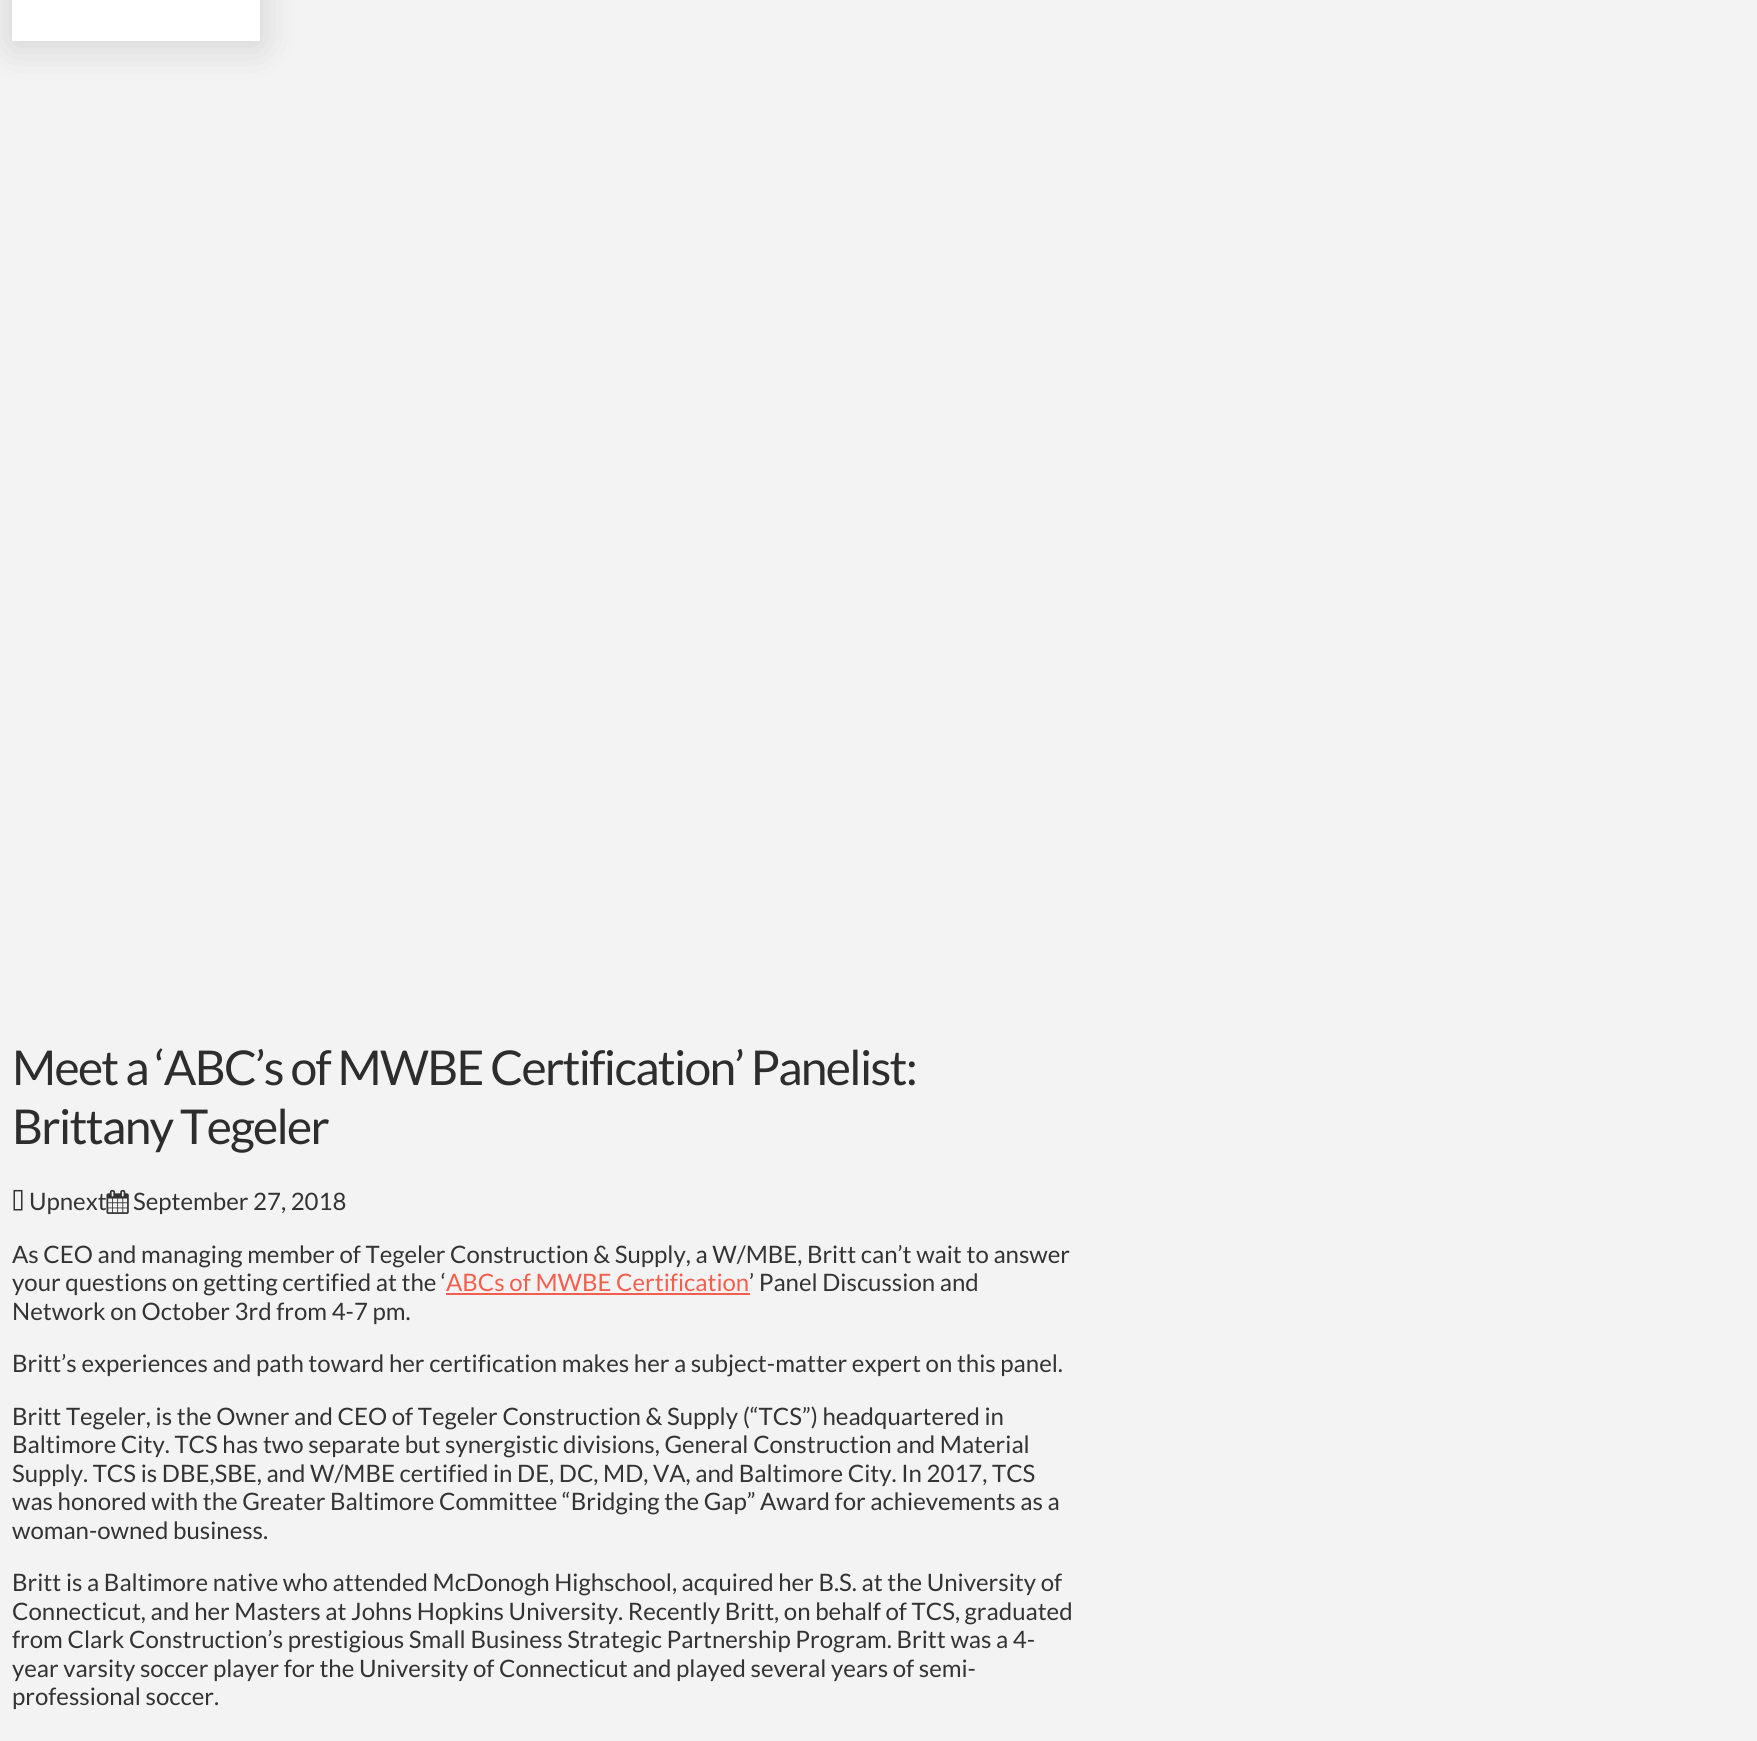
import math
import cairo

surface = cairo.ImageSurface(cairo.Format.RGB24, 1757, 1741)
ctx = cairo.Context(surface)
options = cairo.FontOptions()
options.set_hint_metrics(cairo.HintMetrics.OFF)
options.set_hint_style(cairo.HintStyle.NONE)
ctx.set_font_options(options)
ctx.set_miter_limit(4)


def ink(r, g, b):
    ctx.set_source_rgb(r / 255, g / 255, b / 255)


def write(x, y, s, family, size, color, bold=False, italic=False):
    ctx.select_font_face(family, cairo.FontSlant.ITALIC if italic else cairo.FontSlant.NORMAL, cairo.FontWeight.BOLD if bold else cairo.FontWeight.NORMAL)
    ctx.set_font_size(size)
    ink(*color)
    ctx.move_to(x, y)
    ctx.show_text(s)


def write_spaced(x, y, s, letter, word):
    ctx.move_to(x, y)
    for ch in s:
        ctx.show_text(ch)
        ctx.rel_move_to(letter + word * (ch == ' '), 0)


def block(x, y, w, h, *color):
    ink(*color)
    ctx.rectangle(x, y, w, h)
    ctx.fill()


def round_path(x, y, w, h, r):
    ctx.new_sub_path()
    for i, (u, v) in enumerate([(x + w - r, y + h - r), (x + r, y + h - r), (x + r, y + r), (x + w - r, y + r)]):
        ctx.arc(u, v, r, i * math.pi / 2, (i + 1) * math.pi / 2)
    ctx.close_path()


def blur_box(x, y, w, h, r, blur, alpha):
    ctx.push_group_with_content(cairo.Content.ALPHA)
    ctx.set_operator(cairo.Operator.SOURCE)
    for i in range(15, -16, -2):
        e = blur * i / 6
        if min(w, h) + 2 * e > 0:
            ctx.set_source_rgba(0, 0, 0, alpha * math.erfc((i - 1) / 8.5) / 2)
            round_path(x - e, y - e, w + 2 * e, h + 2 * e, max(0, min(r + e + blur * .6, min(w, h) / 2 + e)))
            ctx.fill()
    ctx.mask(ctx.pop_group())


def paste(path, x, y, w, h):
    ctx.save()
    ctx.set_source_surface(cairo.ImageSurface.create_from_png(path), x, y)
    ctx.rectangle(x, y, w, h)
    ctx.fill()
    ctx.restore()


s1 = dict(family="Lato", size=24, color=(51, 51, 51))
s2 = dict(family="Lato", size=24, color=(247, 93, 76))

ink(243, 243, 243)
ctx.paint()
ink(0, 0, 0)
blur_box(12, -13, 248, 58, 0, 19, 0.15)
block(12, 0, 248, 41, 255, 255, 255)
ctx.select_font_face("Lato")
ctx.set_font_size(48)
ink(45, 45, 45)
write_spaced(12, 1085, "Meet a ‘ABC’s of MWBE Certification’ Panelist:", -1.7, 0)
write_spaced(12, 1144, "Brittany Tegeler", -1.7, 0)
paste("pic1.png", 13, 1189, 10, 22)
write(29, 1210, "Upnext", **s1)
paste("pic2.png", 106, 1189, 23, 25)
write(133, 1210, "September 27, 2018", **s1)
write(12, 1263, "As CEO and managing member of Tegeler Construction & Supply, a W/MBE, Britt can’t wait to answer", **s1)
write(12, 1291, "your questions on getting certified at the ‘", **s1)
write(446, 1291, "ABCs of MWBE Certification", **s2)
block(446, 1293, 304, 2, 247, 93, 76)
write(749, 1291, "’ Panel Discussion and", **s1)
write(12, 1320, "Network on October 3rd from 4-7 pm.", **s1)
write(12, 1372, "Britt’s experiences and path toward her certification makes her a subject-matter expert on this panel.", **s1)
write(12, 1425, "Britt Tegeler, is the Owner and CEO of Tegeler Construction & Supply (“TCS”) headquartered in", **s1)
write(12, 1453, "Baltimore City. TCS has two separate but synergistic divisions, General Construction and Material", **s1)
write(12, 1482, "Supply. TCS is DBE,SBE, and W/MBE certified in DE, DC, MD, VA, and Baltimore City. In 2017, TCS", **s1)
write(12, 1510, "was honored with the Greater Baltimore Committee “Bridging the Gap” Award for achievements as a", **s1)
write(12, 1539, "woman-owned business.", **s1)
write(12, 1591, "Britt is a Baltimore native who attended McDonogh Highschool, acquired her B.S. at the University of", **s1)
write(12, 1620, "Connecticut, and her Masters at Johns Hopkins University. Recently Britt, on behalf of TCS, graduated", **s1)
write(12, 1648, "from Clark Construction’s prestigious Small Business Strategic Partnership Program. Britt was a 4-", **s1)
write(12, 1677, "year varsity soccer player for the University of Connecticut and played several years of semi-", **s1)
write(12, 1705, "professional soccer.", **s1)
surface.write_to_png("screenshot.png")
